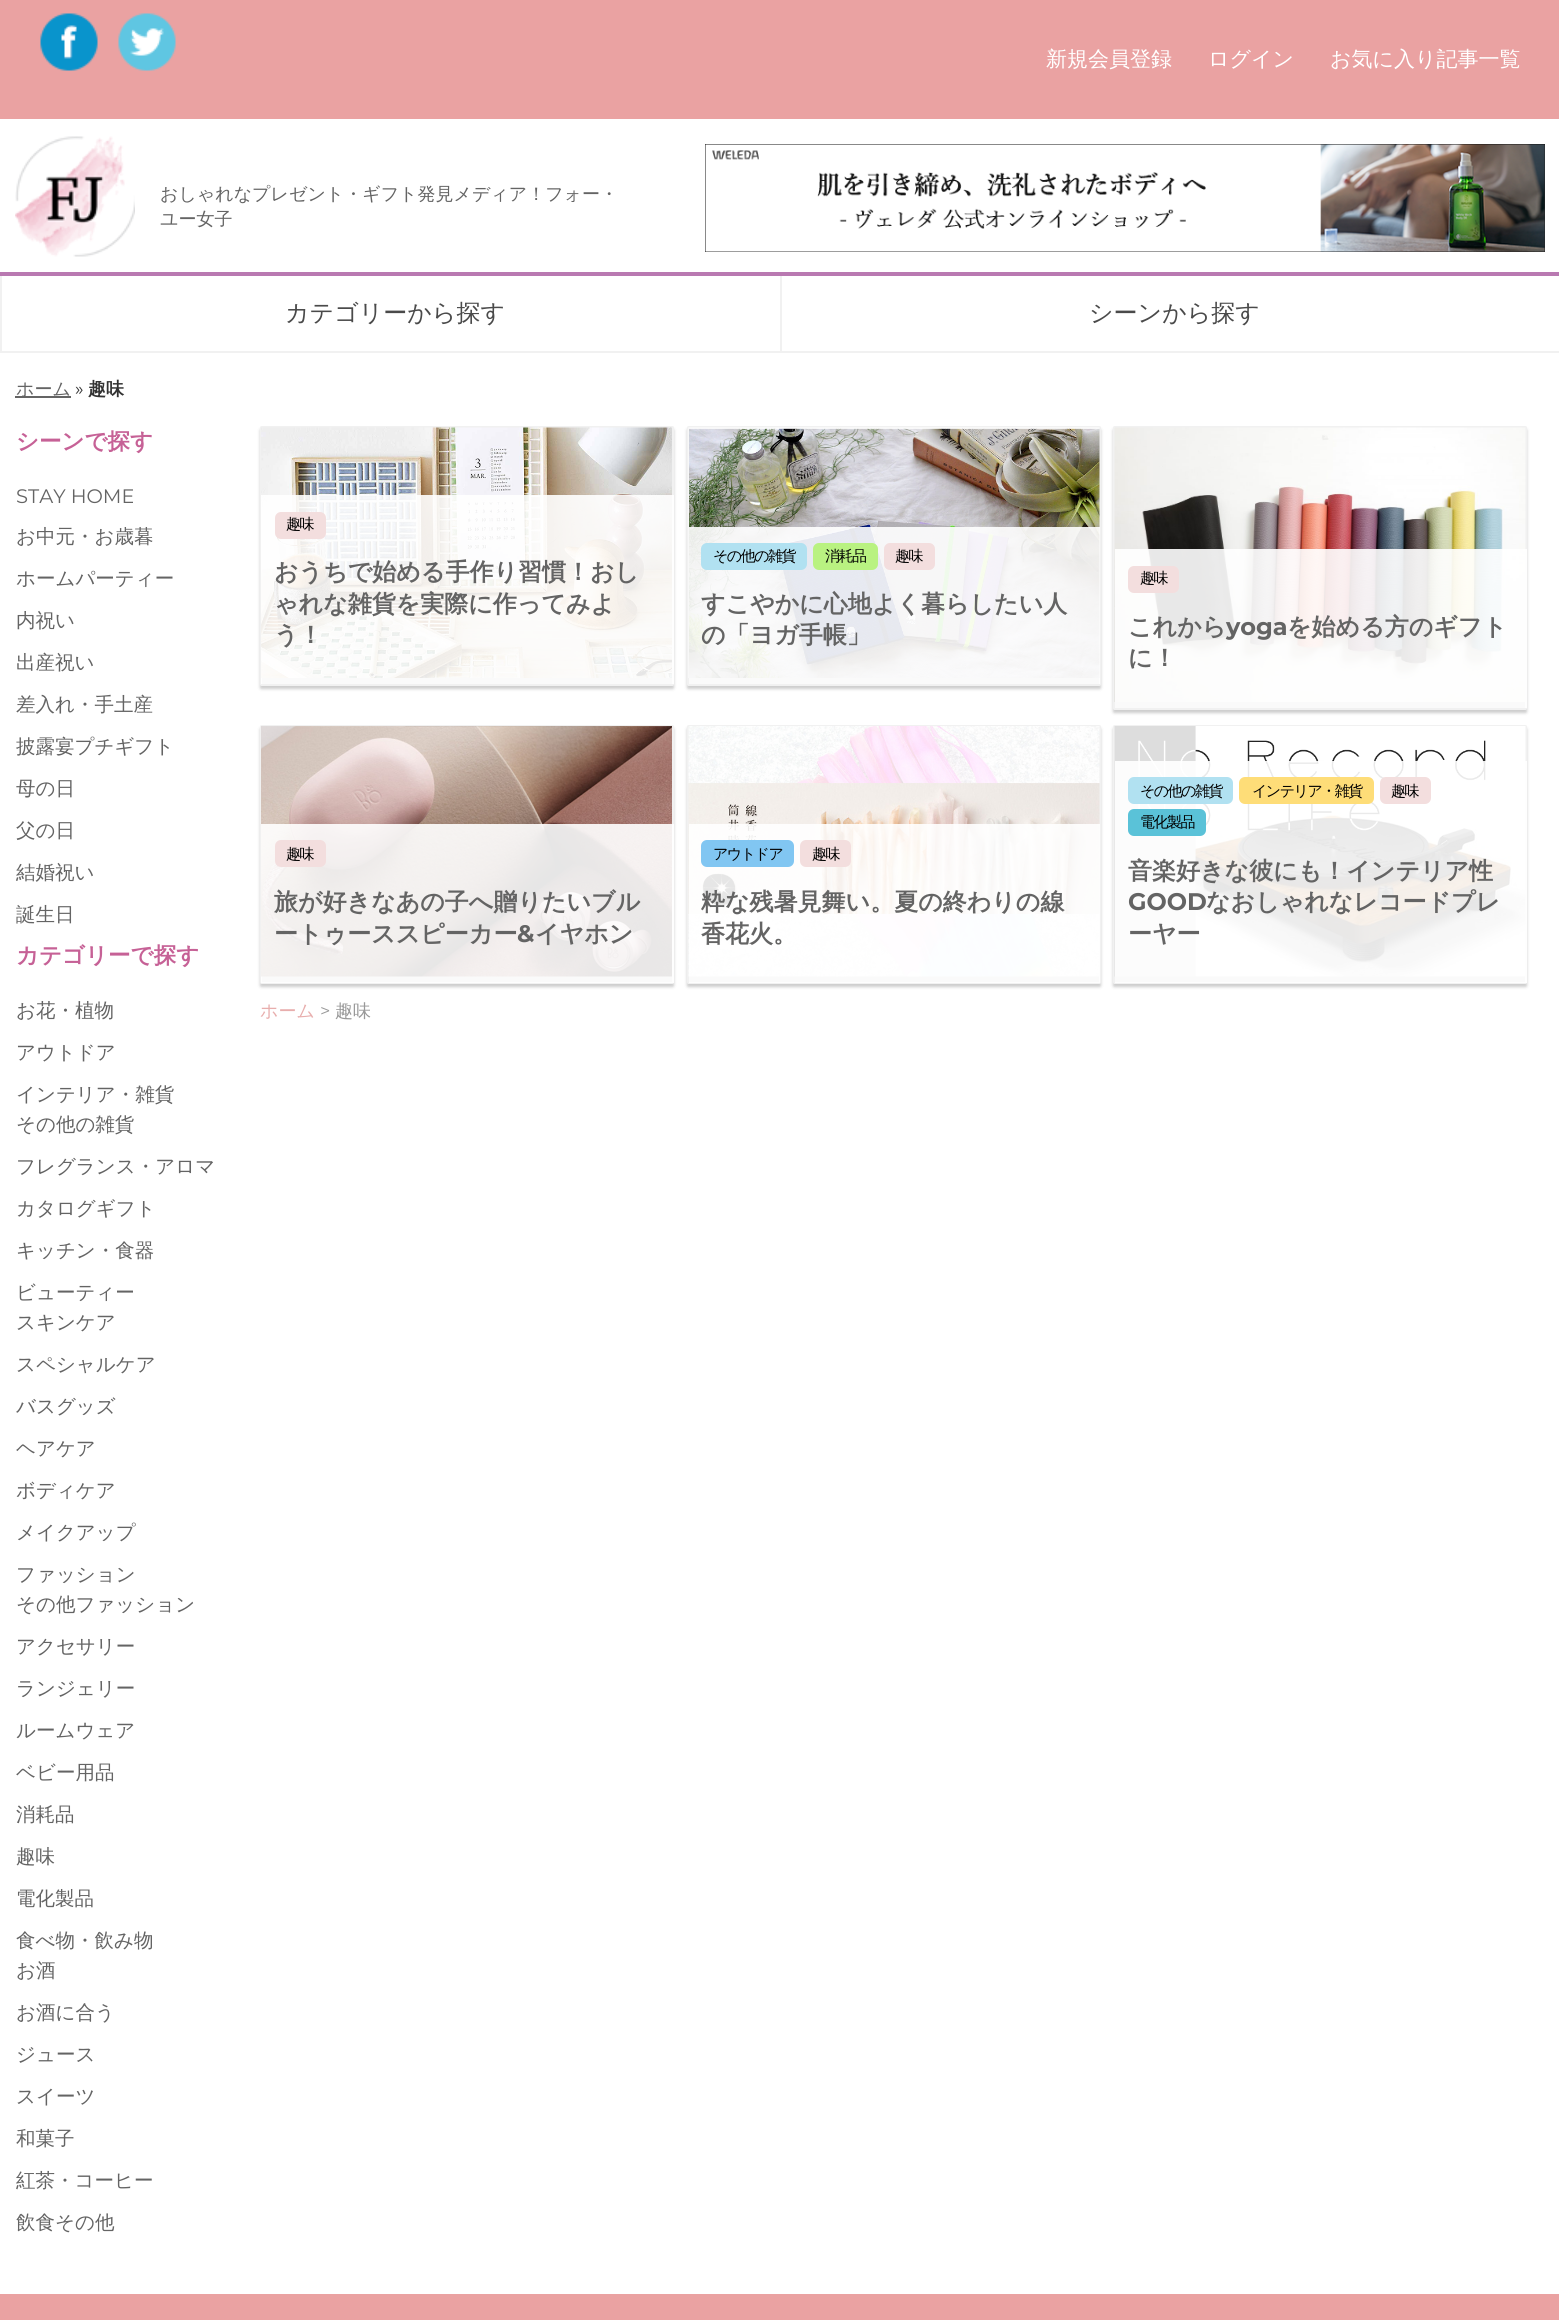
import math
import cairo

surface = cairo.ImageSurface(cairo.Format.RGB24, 1559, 2320)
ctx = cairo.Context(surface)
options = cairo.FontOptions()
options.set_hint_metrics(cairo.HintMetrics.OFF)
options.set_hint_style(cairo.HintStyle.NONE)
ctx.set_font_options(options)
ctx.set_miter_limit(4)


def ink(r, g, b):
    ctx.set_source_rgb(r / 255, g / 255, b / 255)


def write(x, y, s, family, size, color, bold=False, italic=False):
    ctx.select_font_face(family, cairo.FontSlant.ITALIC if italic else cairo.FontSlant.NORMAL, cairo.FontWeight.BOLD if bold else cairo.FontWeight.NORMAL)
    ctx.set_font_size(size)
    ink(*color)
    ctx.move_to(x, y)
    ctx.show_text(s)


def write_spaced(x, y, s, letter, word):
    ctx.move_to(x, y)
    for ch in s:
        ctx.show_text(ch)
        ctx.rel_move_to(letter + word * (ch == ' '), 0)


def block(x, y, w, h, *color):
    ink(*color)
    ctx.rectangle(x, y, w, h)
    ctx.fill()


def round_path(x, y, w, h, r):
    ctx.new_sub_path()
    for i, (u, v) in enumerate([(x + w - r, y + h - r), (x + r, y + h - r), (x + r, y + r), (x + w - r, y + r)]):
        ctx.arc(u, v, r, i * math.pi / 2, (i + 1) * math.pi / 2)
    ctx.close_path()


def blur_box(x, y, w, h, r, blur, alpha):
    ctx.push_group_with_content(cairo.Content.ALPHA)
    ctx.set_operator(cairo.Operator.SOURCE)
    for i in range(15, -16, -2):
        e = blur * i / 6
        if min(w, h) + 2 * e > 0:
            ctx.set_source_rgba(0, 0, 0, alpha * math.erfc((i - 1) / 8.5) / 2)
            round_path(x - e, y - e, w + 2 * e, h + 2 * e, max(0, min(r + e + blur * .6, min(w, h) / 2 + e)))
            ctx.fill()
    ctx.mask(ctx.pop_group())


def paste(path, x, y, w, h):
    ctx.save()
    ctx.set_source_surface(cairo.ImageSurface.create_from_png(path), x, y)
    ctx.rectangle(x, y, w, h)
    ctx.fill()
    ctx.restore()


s1 = dict(family="WenQuanYi Zen Hei Medium", size=21, color=(255, 255, 255))
s2 = dict(family="WenQuanYi Zen Hei Medium", size=18, color=(100, 100, 100))
s3 = dict(family="WenQuanYi Zen Hei Medium", size=24, color=(74, 74, 74))
s4 = dict(family="Montserrat", size=18, color=(51, 51, 51))
s5 = dict(family="WenQuanYi Zen Hei", size=18, color=(51, 51, 51), bold=True)
s6 = dict(family="WenQuanYi Zen Hei", size=22.5, color=(198, 97, 150), bold=True)
s7 = dict(family="Montserrat", size=19.5, color=(100, 100, 100))
s8 = dict(family="WenQuanYi Zen Hei Medium", size=19.5, color=(100, 100, 100))
s9 = dict(family="WenQuanYi Zen Hei", size=24, color=(100, 100, 100), bold=True)
s10 = dict(family="Montserrat", size=24, color=(100, 100, 100), bold=True)
s11 = dict(family="WenQuanYi Zen Hei Medium", size=18, color=(232, 174, 173))
s12 = dict(family="Montserrat", size=18, color=(153, 153, 153))
s13 = dict(family="WenQuanYi Zen Hei Medium", size=18, color=(153, 153, 153))

ink(255, 255, 255)
ctx.paint()
block(0, 0, 1559, 119, 234, 162, 162)
paste("pic1.png", 40, 13, 58, 58)
paste("pic2.png", 118, 13, 58, 58)
write(1046, 66, "新規会員登録", **s1)
write(1208, 66, "ログイン", **s1)
write(1330, 66, "お気に入り記事一覧", **s1)
paste("pic3.png", 15, 136, 120, 121)
write(160, 200, "おしゃれなプレゼント・ギフト発見メディア！フォー・", **s2)
write(160, 225, "ユー女子", **s2)
paste("pic4.png", 705, 144, 840, 108)
ink(185, 121, 177)
ctx.new_path()
ctx.move_to(0, 272)
ctx.line_to(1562, 272)
ctx.line_to(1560, 276)
ctx.line_to(0, 276)
ctx.close_path()
ctx.fill()
block(0, 351, 1559, 2, 241, 241, 241)
block(0, 276, 2, 75, 241, 241, 241)
write(285, 321, "カテゴリーから探す", **s3)
block(780, 276, 2, 75, 241, 241, 241)
write(1089, 321, "シーンから探す", **s3)
block(15, 396, 56, 2, 100, 100, 100)
write(16, 395, "ホーム", **s2)
write(75, 395, "»", **s4)
write(88, 395, "趣味", **s5)
write(16, 449, "シーンで探す", **s6)
write(16, 503, "STAY HOME", **s7)
write(16, 543, "お中元・お歳暮", **s8)
write(16, 585, "ホームパーティー", **s8)
write(16, 627, "内祝い", **s8)
write(16, 669, "出産祝い", **s8)
write(16, 711, "差入れ・手土産", **s8)
write(16, 753, "披露宴プチギフト", **s8)
write(16, 795, "母の日", **s8)
write(16, 837, "父の日", **s8)
write(16, 879, "結婚祝い", **s8)
write(16, 921, "誕生日", **s8)
write(16, 963, "カテゴリーで探す", **s6)
write(16, 1017, "お花・植物", **s8)
write(16, 1059, "アウトドア", **s8)
write(16, 1101, "インテリア・雑貨", **s8)
write(16, 1131, "その他の雑貨", **s8)
write(16, 1173, "フレグランス・アロマ", **s8)
write(16, 1215, "カタログギフト", **s8)
write(16, 1257, "キッチン・食器", **s8)
write(16, 1299, "ビューティー", **s8)
write(16, 1329, "スキンケア", **s8)
write(16, 1371, "スペシャルケア", **s8)
write(16, 1413, "バスグッズ", **s8)
write(16, 1455, "ヘアケア", **s8)
write(16, 1497, "ボディケア", **s8)
write(16, 1539, "メイクアップ", **s8)
write(16, 1581, "ファッション", **s8)
write(16, 1611, "その他ファッション", **s8)
write(16, 1653, "アクセサリー", **s8)
write(16, 1695, "ランジェリー", **s8)
write(16, 1737, "ルームウェア", **s8)
write(16, 1779, "ベビー用品", **s8)
write(16, 1821, "消耗品", **s8)
write(16, 1863, "趣味", **s8)
write(16, 1905, "電化製品", **s8)
write(16, 1947, "食べ物・飲み物", **s8)
write(16, 1977, "お酒", **s8)
write(16, 2019, "お酒に合う", **s8)
write(16, 2061, "ジュース", **s8)
write(16, 2103, "スイーツ", **s8)
write(16, 2145, "和菓子", **s8)
write(16, 2187, "紅茶・コーヒー", **s8)
write(16, 2229, "飲食その他", **s8)
ink(0, 0, 0)
blur_box(260, 429, 414, 260, 1.5, 1.5, 0.2)
ink(204, 204, 204)
round_path(261, 427, 412, 258, 0.5)
ctx.fill_preserve()
ink(241, 241, 241)
ctx.stroke()
paste("pic5.png", 261, 427, 411, 251)
ctx.set_source_rgba(1, 1, 1, 0.9)
ctx.rectangle(261, 495, 413, 189)
ctx.fill()
ink(243, 222, 222)
round_path(275, 512, 51, 27, 6)
ctx.fill()
ctx.set_font_size(15)
ink(0, 0, 0)
write_spaced(286, 529, "趣味", -1.5, 0)
write(274, 580, "おうちで始める手作り習慣！おし", **s9)
write(274, 612, "ゃれな雑貨を実際に作ってみよ", **s9)
write(274, 643, "う！", **s9)
ink(0, 0, 0)
blur_box(687, 429, 414, 260, 1.5, 1.5, 0.2)
ink(204, 204, 204)
round_path(688, 427, 412, 258, 0.5)
ctx.fill_preserve()
ink(241, 241, 241)
ctx.stroke()
paste("pic6.png", 688, 427, 412, 251)
ctx.set_source_rgba(1, 1, 1, 0.9)
ctx.rectangle(689, 527, 411, 157)
ctx.fill()
ink(177, 225, 241)
round_path(701, 543, 106, 27, 6)
ctx.fill()
ctx.select_font_face("WenQuanYi Zen Hei Medium")
ctx.set_font_size(15)
ink(0, 0, 0)
write_spaced(713, 561, "その他の雑貨", -1.5, 0)
ink(185, 242, 129)
round_path(813, 543, 65, 27, 6)
ctx.fill()
ink(0, 0, 0)
write_spaced(825, 561, "消耗品", -1.5, 0)
ink(243, 222, 222)
round_path(884, 543, 51, 27, 6)
ctx.fill()
ink(0, 0, 0)
write_spaced(895, 561, "趣味", -1.5, 0)
write(701, 612, "すこやかに心地よく暮らしたい人", **s9)
write(701, 643, "の「ヨガ手帳」", **s9)
ink(0, 0, 0)
blur_box(1113, 429, 414, 284, 1.5, 1.5, 0.2)
ink(204, 204, 204)
round_path(1114, 427, 412, 282, 0.5)
ctx.fill_preserve()
ink(241, 241, 241)
ctx.stroke()
paste("pic7.png", 1114, 427, 412, 275)
ctx.set_source_rgba(1, 1, 1, 0.9)
ctx.rectangle(1115, 549, 412, 159)
ctx.fill()
ink(243, 222, 222)
round_path(1128, 566, 51, 27, 6)
ctx.fill()
ctx.select_font_face("WenQuanYi Zen Hei Medium")
ctx.set_font_size(15)
ink(0, 0, 0)
write_spaced(1140, 583, "趣味", -1.5, 0)
write(1128, 635, "これから", **s9)
write(1226, 635, "yoga", **s10)
write(1287, 635, "を始める方のギフト", **s9)
write(1128, 666, "に！", **s9)
ink(0, 0, 0)
blur_box(260, 728, 414, 259, 1.5, 1.5, 0.2)
ink(204, 204, 204)
round_path(261, 726, 412, 257, 0.5)
ctx.fill_preserve()
ink(241, 241, 241)
ctx.stroke()
paste("pic8.png", 261, 726, 411, 251)
ctx.set_source_rgba(1, 1, 1, 0.9)
ctx.rectangle(261, 824, 413, 159)
ctx.fill()
ink(243, 222, 222)
round_path(275, 840, 51, 27, 6)
ctx.fill()
ctx.select_font_face("WenQuanYi Zen Hei Medium")
ctx.set_font_size(15)
ink(0, 0, 0)
write_spaced(286, 859, "趣味", -1.5, 0)
write(274, 910, "旅が好きなあの子へ贈りたいブル", **s9)
write(274, 942, "ートゥーススピーカー", **s9)
write(517, 942, "&", **s10)
write(535, 942, "イヤホン", **s9)
ink(0, 0, 0)
blur_box(687, 728, 414, 259, 1.5, 1.5, 0.2)
ink(204, 204, 204)
round_path(688, 726, 412, 257, 0.5)
ctx.fill_preserve()
ink(241, 241, 241)
ctx.stroke()
paste("pic9.png", 688, 726, 412, 251)
ctx.set_source_rgba(1, 1, 1, 0.9)
ctx.rectangle(689, 824, 411, 159)
ctx.fill()
ink(129, 198, 242)
round_path(701, 840, 93, 27, 6)
ctx.fill()
ctx.select_font_face("WenQuanYi Zen Hei Medium")
ctx.set_font_size(15)
ink(0, 0, 0)
write_spaced(713, 859, "アウトドア", -1.5, 0)
ink(243, 222, 222)
round_path(800, 840, 51, 27, 6)
ctx.fill()
ink(0, 0, 0)
write_spaced(812, 859, "趣味", -1.5, 0)
write(701, 910, "粋な残暑見舞い。夏の終わりの線", **s9)
write(701, 942, "香花火。", **s9)
ink(0, 0, 0)
blur_box(1113, 728, 414, 259, 1.5, 1.5, 0.2)
ink(204, 204, 204)
round_path(1114, 726, 412, 257, 0.5)
ctx.fill_preserve()
ink(241, 241, 241)
ctx.stroke()
paste("pic10.png", 1114, 726, 412, 251)
ctx.set_source_rgba(1, 1, 1, 0.9)
ctx.rectangle(1115, 761, 412, 222)
ctx.fill()
ink(177, 225, 241)
round_path(1128, 777, 105, 27, 6)
ctx.fill()
ctx.select_font_face("WenQuanYi Zen Hei Medium")
ctx.set_font_size(15)
ink(0, 0, 0)
write_spaced(1140, 796, "その他の雑貨", -1.5, 0)
ink(254, 221, 120)
round_path(1239, 777, 135, 27, 6)
ctx.fill()
ink(0, 0, 0)
write_spaced(1252, 796, "インテリア・雑貨", -1.5, 0)
ink(243, 222, 222)
round_path(1380, 777, 51, 27, 6)
ctx.fill()
ink(0, 0, 0)
write_spaced(1391, 796, "趣味", -1.5, 0)
ink(90, 194, 216)
round_path(1128, 809, 78, 27, 6)
ctx.fill()
ink(0, 0, 0)
write_spaced(1140, 827, "電化製品", -1.5, 0)
write(1128, 879, "音楽好きな彼にも！インテリア性", **s9)
write(1128, 910, "GOOD", **s10)
write(1206, 910, "なおしゃれなレコードプレ", **s9)
write(1128, 942, "ーヤー", **s9)
write(260, 1017, "ホーム", **s11)
write(320, 1017, ">", **s12)
write(335, 1017, "趣味", **s13)
block(0, 2294, 1559, 26, 234, 162, 162)
surface.write_to_png("screenshot.png")
